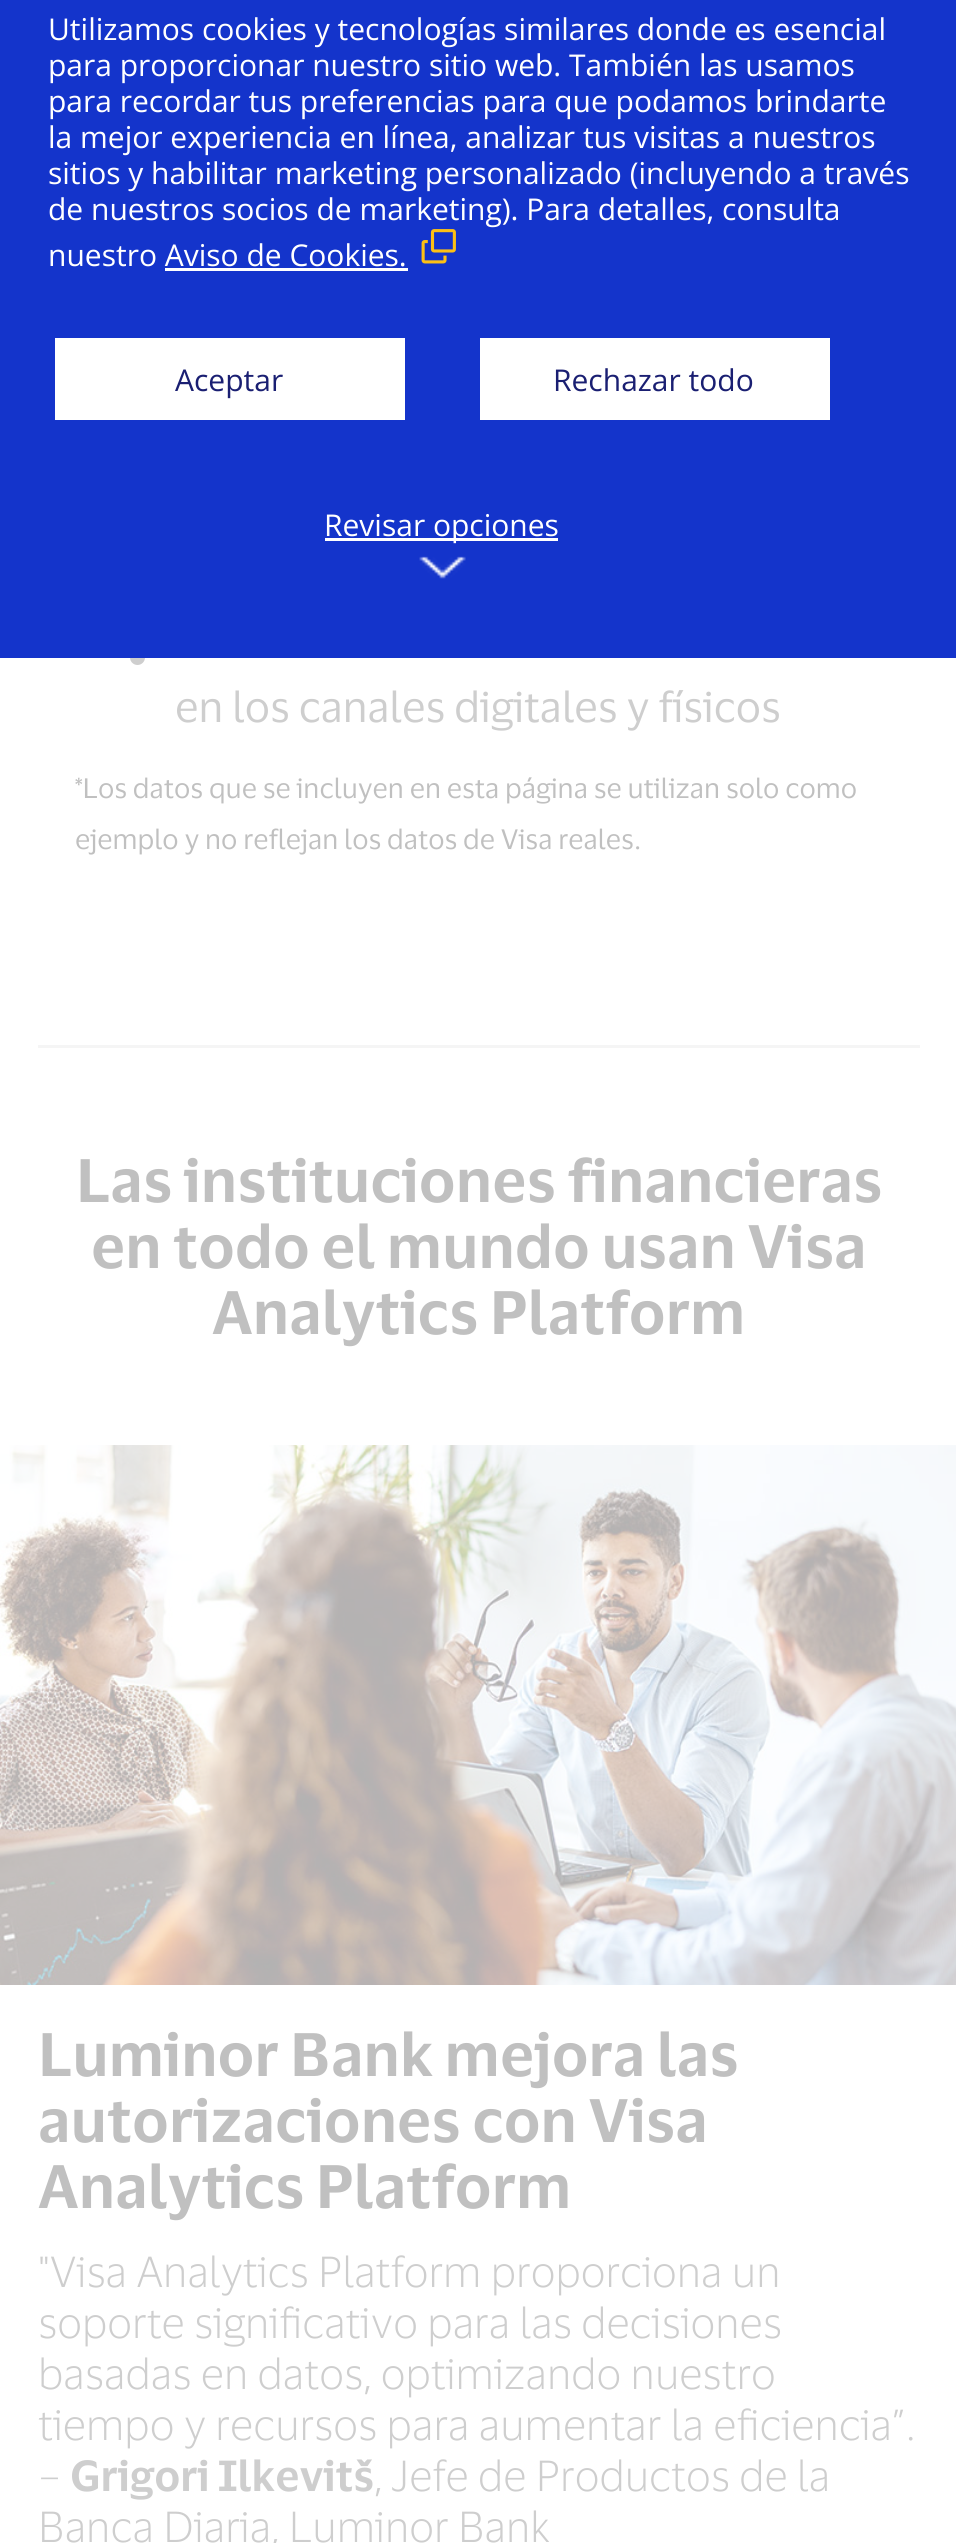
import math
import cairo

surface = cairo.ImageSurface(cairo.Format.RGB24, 956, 2543)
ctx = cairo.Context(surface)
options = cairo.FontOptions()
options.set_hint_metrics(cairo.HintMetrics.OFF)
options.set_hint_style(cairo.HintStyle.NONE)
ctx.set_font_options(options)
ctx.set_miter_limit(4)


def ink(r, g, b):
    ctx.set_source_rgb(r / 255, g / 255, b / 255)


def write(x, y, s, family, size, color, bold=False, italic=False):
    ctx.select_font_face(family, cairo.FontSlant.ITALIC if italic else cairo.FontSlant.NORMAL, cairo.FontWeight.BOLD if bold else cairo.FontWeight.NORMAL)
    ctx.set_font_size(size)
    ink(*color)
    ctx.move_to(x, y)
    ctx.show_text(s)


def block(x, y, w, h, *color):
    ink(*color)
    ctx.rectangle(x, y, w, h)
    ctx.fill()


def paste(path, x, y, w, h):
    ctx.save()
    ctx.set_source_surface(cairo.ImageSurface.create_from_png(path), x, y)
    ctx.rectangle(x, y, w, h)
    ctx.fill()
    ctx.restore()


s1 = dict(family="Open Sans", size=30, color=(255, 255, 255))
s2 = dict(family="Open Sans", size=30, color=(26, 31, 114))
s3 = dict(family="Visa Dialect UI", size=42.5, color=(206, 206, 206))
s4 = dict(family="Visa Dialect UI", size=27.5, color=(192, 192, 192))
s5 = dict(family="Visa Dialect UI SemiBold", size=60, color=(192, 192, 192))
s6 = dict(family="Visa Dialect UI Light", size=42.5, color=(206, 206, 206))
s7 = dict(family="Visa Dialect UI SemiBold", size=42.5, color=(206, 206, 206))

ink(255, 255, 255)
ctx.paint()
ink(206, 206, 206)
ctx.arc(137.5, 657.5, 7.5, 0, 2 * math.pi)
ctx.fill()
block(0, 0, 956, 658, 20, 52, 203)
write(48, 40, "Utilizamos cookies y tecnologías similares donde es esencial", **s1)
write(48, 76, "para proporcionar nuestro sitio web. También las usamos", **s1)
write(48, 112, "para recordar tus preferencias para que podamos brindarte", **s1)
write(48, 148, "la mejor experiencia en línea, analizar tus visitas a nuestros", **s1)
write(48, 184, "sitios y habilitar marketing personalizado (incluyendo a través", **s1)
write(48, 220, "de nuestros socios de marketing). Para detalles, consulta", **s1)
paste("pic1.png", 421, 229, 35, 35)
block(165, 268, 243, 3, 255, 255, 255)
write(48, 266, "nuestro Aviso de Cookies.", **s1)
block(55, 338, 350, 82, 255, 255, 255)
write(175, 391, "Aceptar", **s2)
block(480, 338, 350, 82, 255, 255, 255)
write(553, 391, "Rechazar todo", **s2)
block(325, 538, 233, 3, 255, 255, 255)
write(324, 536, "Revisar opciones", **s1)
paste("pic2.png", 419, 556, 47, 23)
write(175, 722, "en los canales digitales y físicos", **s3)
write(75, 798, "*Los datos que se incluyen en esta página se utilizan solo como", **s4)
write(75, 849, "ejemplo y no reflejan los datos de Visa reales.", **s4)
block(38, 1045, 882, 3, 245, 245, 245)
write(76, 1202, "Las instituciones financieras", **s5)
write(91, 1268, "en todo el mundo usan Visa", **s5)
write(212, 1334, "Analytics Platform", **s5)
paste("pic3.png", 0, 1445, 956, 540)
write(38, 2076, "Luminor Bank mejora las", **s5)
write(38, 2142, "autorizaciones con Visa", **s5)
write(38, 2208, "Analytics Platform", **s5)
write(38, 2287, "\"Visa Analytics Platform proporciona un", **s6)
write(38, 2338, "soporte significativo para las decisiones", **s6)
write(38, 2389, "basadas en datos, optimizando nuestro", **s6)
write(38, 2440, "tiempo y recursos para aumentar la eficiencia”.", **s6)
write(38, 2491, "–", **s6)
write(70, 2491, "Grigori Ilkevitš", **s7)
write(374, 2491, ", Jefe de Productos de la", **s6)
write(38, 2542, "Banca Diaria, Luminor Bank", **s6)
surface.write_to_png("screenshot.png")
